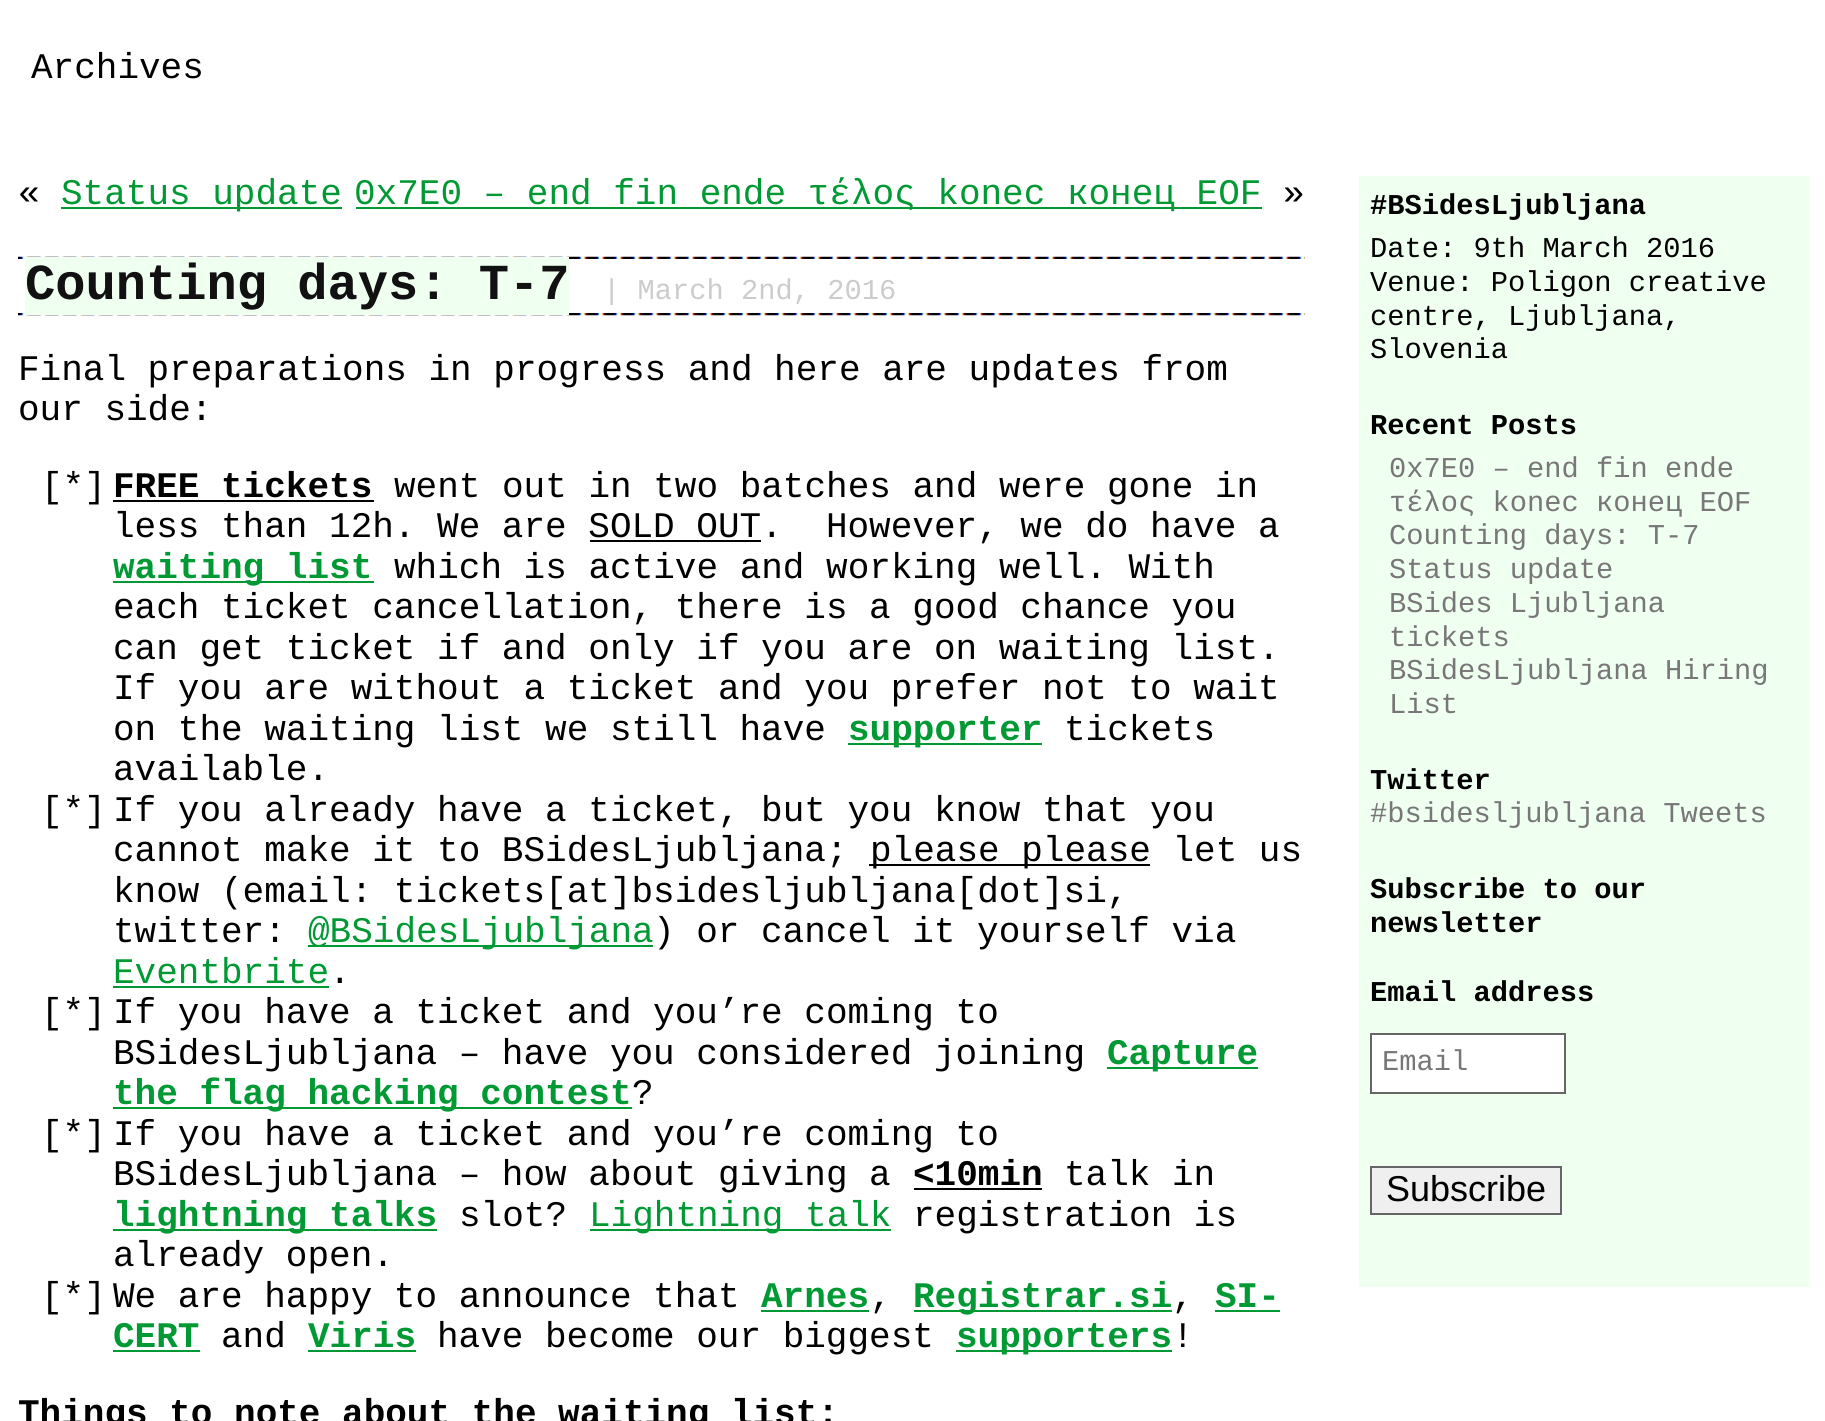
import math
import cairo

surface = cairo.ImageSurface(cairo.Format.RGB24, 1825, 1421)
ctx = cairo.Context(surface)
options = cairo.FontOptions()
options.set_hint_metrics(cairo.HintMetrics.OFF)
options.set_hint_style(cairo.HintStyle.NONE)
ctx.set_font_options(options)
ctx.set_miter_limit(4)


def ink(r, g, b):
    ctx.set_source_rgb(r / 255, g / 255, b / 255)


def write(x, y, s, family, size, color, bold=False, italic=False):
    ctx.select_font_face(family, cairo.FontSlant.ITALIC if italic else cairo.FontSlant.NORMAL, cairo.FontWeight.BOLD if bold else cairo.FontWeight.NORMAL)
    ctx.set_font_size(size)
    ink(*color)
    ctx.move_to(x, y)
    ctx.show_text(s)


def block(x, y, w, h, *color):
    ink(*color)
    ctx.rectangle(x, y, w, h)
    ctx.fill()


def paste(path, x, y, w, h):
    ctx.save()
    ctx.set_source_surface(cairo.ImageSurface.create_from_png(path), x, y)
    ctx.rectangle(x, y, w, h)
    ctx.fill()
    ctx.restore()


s1 = dict(family="Liberation Mono", size=36, color=(0, 0, 0))
s2 = dict(family="Liberation Mono", size=36, color=(0, 153, 51))
s3 = dict(family="Liberation Mono", size=50.4, color=(17, 17, 17), bold=True)
s4 = dict(family="Liberation Mono", size=28.75, color=(204, 204, 204))
s5 = dict(family="Liberation Mono", size=36, color=(0, 0, 0), bold=True)
s6 = dict(family="Liberation Mono", size=36, color=(0, 153, 51), bold=True)
s7 = dict(family="Liberation Mono", size=28.75, color=(0, 0, 0), bold=True)
s8 = dict(family="Liberation Mono", size=28.75, color=(0, 0, 0))
s9 = dict(family="Liberation Mono", size=28.75, color=(119, 119, 119))
s10 = dict(family="Liberation Sans", size=36, color=(0, 0, 0))

ink(255, 255, 255)
ctx.paint()
write(31, 78, "Archives", **s1)
write(18, 204, "«", **s1)
block(61, 207, 281, 2, 0, 153, 51)
write(61, 204, "Status update", **s2)
block(356, 207, 906, 2, 0, 153, 51)
write(354, 204, "0x7E0 – end fin ende τέλος konec конец EOF", **s2)
write(1283, 204, "»", **s1)
paste("pic1.png", 18, 256, 1287, 3)
paste("pic2.png", 18, 313, 1287, 3)
block(25, 257, 544, 58, 239, 255, 240)
write(25, 299, "Counting days: T-7", **s3)
write(603, 299, "| March 2nd, 2016", **s4)
write(18, 380, "Final preparations in progress and here are updates from", **s1)
write(18, 420, "our side:", **s1)
write(41, 497, "[*]", **s1)
write(113, 497, "FREE tickets", **s5)
block(113, 500, 261, 2, 0, 0, 0)
write(394, 497, "went out in two batches and were gone in", **s1)
write(113, 537, "less than 12h. We are SOLD OUT.  However, we do have a", **s1)
block(590, 540, 171, 2, 0, 0, 0)
block(113, 581, 261, 2, 0, 153, 51)
write(113, 578, "waiting list", **s6)
write(394, 578, "which is active and working well. With", **s1)
write(113, 618, "each ticket cancellation, there is a good chance you", **s1)
write(113, 659, "can get ticket if and only if you are on waiting list.", **s1)
write(113, 699, "If you are without a ticket and you prefer not to wait", **s1)
write(113, 740, "on the waiting list we still have", **s1)
block(848, 743, 194, 2, 0, 153, 51)
write(848, 740, "supporter", **s6)
write(1064, 740, "tickets", **s1)
write(113, 780, "available.", **s1)
write(41, 821, "[*]", **s1)
write(113, 821, "If you already have a ticket, but you know that you", **s1)
write(113, 861, "cannot make it to BSidesLjubljana;", **s1)
block(869, 864, 281, 2, 0, 0, 0)
write(870, 861, "please please let us", **s1)
write(113, 902, "know (email: tickets[at]bsidesljubljana[dot]si,", **s1)
write(113, 942, "twitter:", **s1)
block(308, 945, 345, 2, 0, 153, 51)
write(308, 942, "@BSidesLjubljana", **s2)
write(653, 942, ") or cancel it yourself via", **s1)
write(113, 983, "Eventbrite", **s2)
block(113, 986, 216, 2, 0, 153, 51)
write(329, 983, ".", **s1)
write(41, 1023, "[*]", **s1)
write(113, 1023, "If you have a ticket and you’re coming to", **s1)
write(113, 1064, "BSidesLjubljana – have you considered joining", **s1)
block(1107, 1067, 151, 2, 0, 153, 51)
write(1107, 1064, "Capture", **s6)
block(113, 1107, 519, 2, 0, 153, 51)
write(113, 1104, "the flag hacking contest", **s6)
write(632, 1104, "?", **s1)
write(41, 1145, "[*]", **s1)
write(113, 1145, "If you have a ticket and you’re coming to", **s1)
write(113, 1185, "BSidesLjubljana – how about giving a", **s1)
write(913, 1185, "<10min", **s5)
block(914, 1188, 128, 2, 0, 0, 0)
write(1064, 1185, "talk in", **s1)
block(113, 1229, 324, 2, 0, 153, 51)
write(113, 1226, "lightning talks", **s6)
write(459, 1226, "slot?", **s1)
block(590, 1229, 301, 2, 0, 153, 51)
write(589, 1226, "Lightning talk", **s2)
write(913, 1226, "registration is", **s1)
write(113, 1266, "already open.", **s1)
write(41, 1307, "[*]", **s1)
write(113, 1307, "We are happy to announce that", **s1)
write(761, 1307, "Arnes", **s6)
block(761, 1310, 108, 2, 0, 153, 51)
write(870, 1307, ",", **s1)
block(914, 1310, 258, 2, 0, 153, 51)
write(913, 1307, "Registrar.si", **s6)
write(1172, 1307, ",", **s1)
write(1215, 1307, "SI-", **s6)
block(1215, 1310, 65, 2, 0, 153, 51)
write(113, 1347, "CERT", **s6)
block(113, 1350, 87, 2, 0, 153, 51)
write(221, 1347, "and", **s1)
write(308, 1347, "Viris", **s6)
block(308, 1350, 108, 2, 0, 153, 51)
write(437, 1347, "have become our biggest", **s1)
block(956, 1350, 216, 2, 0, 153, 51)
write(956, 1347, "supporters", **s6)
write(1172, 1347, "!", **s1)
write(18, 1424, "Things to note about the waiting list:", **s5)
block(1359, 176, 450, 1111, 239, 255, 240)
write(1370, 214, "#BSidesLjubljana", **s7)
write(1370, 257, "Date: 9th March 2016", **s8)
write(1370, 291, "Venue: Poligon creative", **s8)
write(1370, 325, "centre, Ljubljana,", **s8)
write(1370, 358, "Slovenia", **s8)
write(1370, 434, "Recent Posts", **s7)
write(1389, 477, "0x7E0 – end fin ende", **s9)
write(1389, 511, "τέλος konec конец EOF", **s9)
write(1389, 544, "Counting days: T-7", **s9)
write(1389, 578, "Status update", **s9)
write(1389, 612, "BSides Ljubljana", **s9)
write(1389, 646, "tickets", **s9)
write(1389, 679, "BSidesLjubljana Hiring", **s9)
write(1389, 713, "List", **s9)
write(1370, 789, "Twitter", **s7)
write(1370, 822, "#bsidesljubljana Tweets", **s9)
write(1370, 898, "Subscribe to our", **s7)
write(1370, 932, "newsletter", **s7)
write(1370, 1001, "Email address", **s7)
ink(255, 255, 255)
ctx.rectangle(1371, 1034, 194, 59)
ctx.fill_preserve()
ink(102, 102, 102)
ctx.stroke()
write(1382, 1070, "Email", **s9)
ink(239, 239, 239)
ctx.rectangle(1371, 1167, 190, 47)
ctx.fill_preserve()
ink(102, 102, 102)
ctx.stroke()
write(1386, 1201, "Subscribe", **s10)
surface.write_to_png("screenshot.png")
